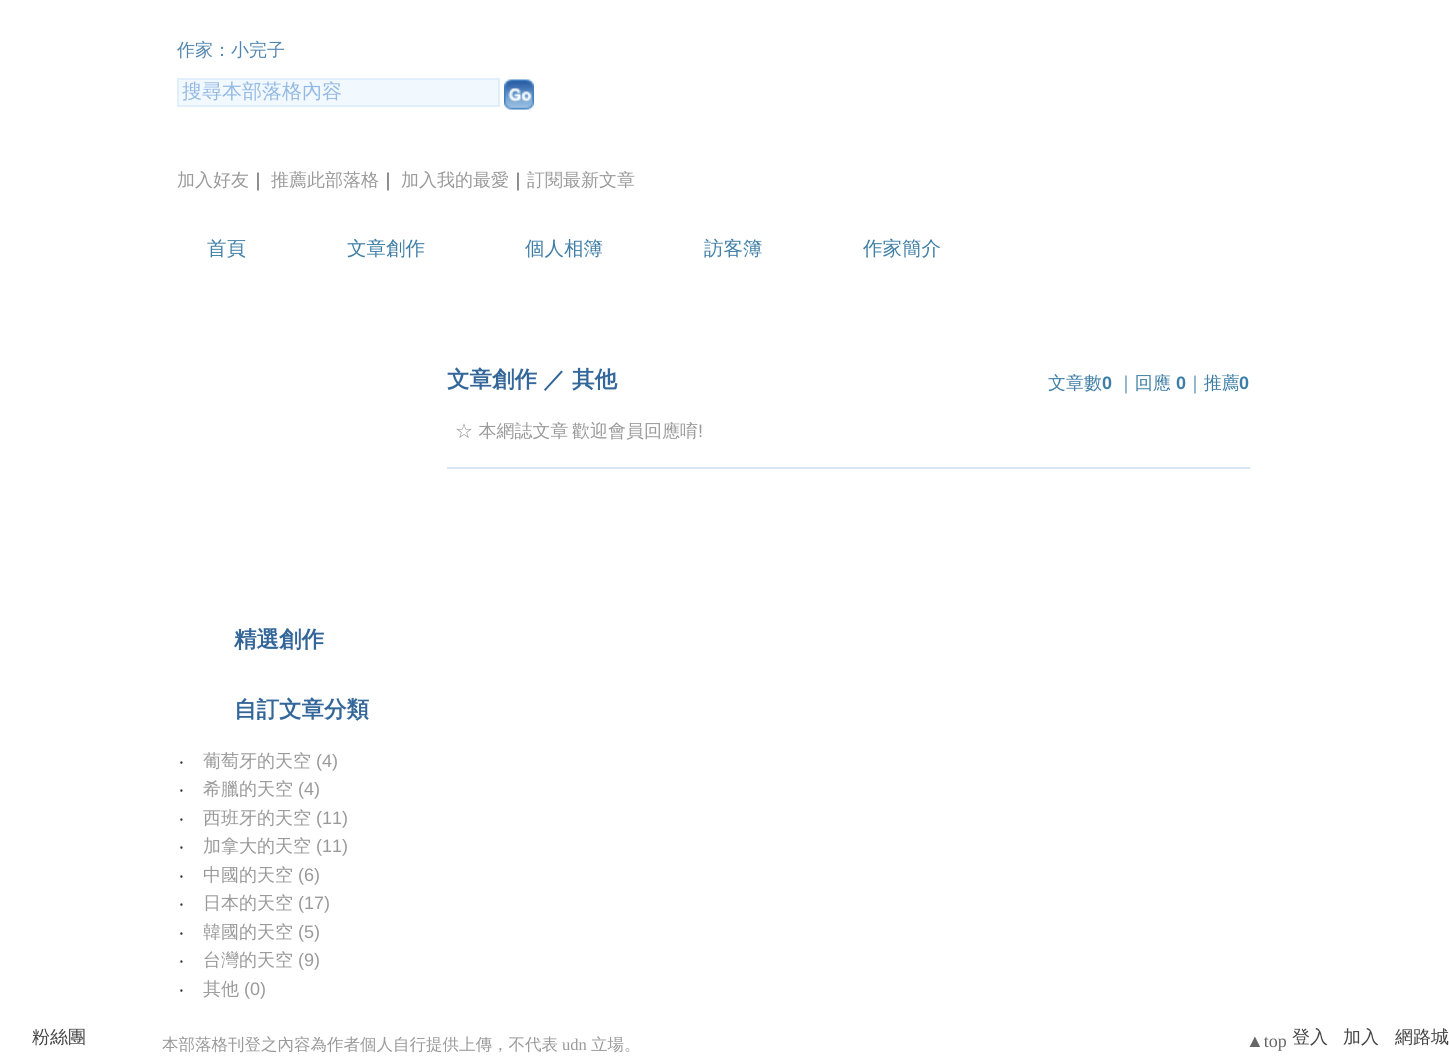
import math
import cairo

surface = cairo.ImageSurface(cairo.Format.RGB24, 1449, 1059)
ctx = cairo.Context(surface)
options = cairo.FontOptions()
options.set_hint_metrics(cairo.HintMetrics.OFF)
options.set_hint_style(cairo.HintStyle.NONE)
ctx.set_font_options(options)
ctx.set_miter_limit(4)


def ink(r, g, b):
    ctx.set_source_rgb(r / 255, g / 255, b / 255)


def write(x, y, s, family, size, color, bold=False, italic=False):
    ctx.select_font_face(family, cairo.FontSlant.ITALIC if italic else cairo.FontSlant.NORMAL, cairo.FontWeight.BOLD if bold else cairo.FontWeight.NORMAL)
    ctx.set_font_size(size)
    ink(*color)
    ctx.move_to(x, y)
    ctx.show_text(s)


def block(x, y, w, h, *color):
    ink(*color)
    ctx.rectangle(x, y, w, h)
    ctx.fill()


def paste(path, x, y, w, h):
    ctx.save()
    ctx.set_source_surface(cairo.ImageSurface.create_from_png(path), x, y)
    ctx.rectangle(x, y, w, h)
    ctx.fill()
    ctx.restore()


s1 = dict(family="WenQuanYi Zen Hei Medium", size=18, color=(80, 133, 175))
s2 = dict(family="WenQuanYi Zen Hei Medium", size=20, color=(148, 185, 226))
s3 = dict(family="WenQuanYi Zen Hei Medium", size=18, color=(153, 153, 153))
s4 = dict(family="WenQuanYi Zen Hei Medium", size=18, color=(51, 51, 51))
s5 = dict(family="WenQuanYi Zen Hei Medium", size=19.5, color=(62, 126, 166))
s6 = dict(family="WenQuanYi Zen Hei", size=22.5, color=(51, 102, 153), bold=True)
s7 = dict(family="WenQuanYi Zen Hei Medium", size=18, color=(62, 126, 166))
s8 = dict(family="Liberation Sans", size=18, color=(62, 126, 166), bold=True)
s9 = dict(family="Liberation Sans", size=18, color=(153, 153, 153))
s10 = dict(family="Noto Sans", size=18, color=(51, 51, 51))
s11 = dict(family="WenQuanYi Zen Hei Medium", size=16.5, color=(153, 153, 153))
s12 = dict(family="Liberation Serif", size=16.5, color=(153, 153, 153))
s13 = dict(family="Liberation Serif", size=18, color=(102, 102, 102))
s14 = dict(family="WenQuanYi Zen Hei Medium", size=18, color=(68, 68, 68))

ink(255, 255, 255)
ctx.paint()
write(177, 56, "作家：小完子", **s1)
ink(241, 248, 254)
ctx.rectangle(178, 79, 321, 27)
ctx.fill_preserve()
ink(225, 239, 252)
ctx.stroke()
write(182, 98, "搜尋本部落格內容", **s2)
paste("pic1.png", 504, 79, 30, 31)
write(177, 186, "加入好友", **s3)
write(249, 186, "｜", **s4)
write(271, 186, "推薦此部落格", **s3)
write(379, 186, "｜", **s4)
write(401, 186, "加入我的最愛", **s3)
write(509, 186, "｜", **s4)
write(527, 186, "訂閱最新文章", **s3)
write(207, 255, "首頁", **s5)
write(347, 255, "文章創作", **s5)
write(525, 255, "個人相簿", **s5)
write(704, 255, "訪客簿", **s5)
write(863, 255, "作家簡介", **s5)
write(447, 387, "文章創作", **s6)
write(543, 387, "／", **s6)
write(572, 387, "其他", **s6)
write(1048, 389, "文章數", **s7)
write(1102, 389, "0", **s8)
write(1117, 389, "｜回應", **s7)
write(1176, 389, "0", **s8)
write(1186, 389, "｜推薦", **s7)
write(1239, 389, "0", **s8)
write(455, 437, "☆ 本網誌文章", **s3)
write(572, 437, "歡迎會員回應唷", **s3)
write(698, 437, "!", **s9)
block(447, 467, 803, 2, 216, 229, 242)
write(234, 647, "精選創作", **s6)
write(234, 717, "自訂文章分類", **s6)
write(179, 767, "‧", **s10)
write(203, 767, "葡萄牙的天空", **s3)
write(316, 767, "(4)", **s9)
write(179, 795, "‧", **s10)
write(203, 795, "希臘的天空", **s3)
write(298, 795, "(4)", **s9)
write(179, 824, "‧", **s10)
write(203, 824, "西班牙的天空", **s3)
write(316, 824, "(11)", **s9)
write(179, 852, "‧", **s10)
write(203, 852, "加拿大的天空", **s3)
write(316, 852, "(11)", **s9)
write(179, 881, "‧", **s10)
write(203, 881, "中國的天空", **s3)
write(298, 881, "(6)", **s9)
write(179, 909, "‧", **s10)
write(203, 909, "日本的天空", **s3)
write(298, 909, "(17)", **s9)
write(179, 938, "‧", **s10)
write(203, 938, "韓國的天空", **s3)
write(298, 938, "(5)", **s9)
write(179, 966, "‧", **s10)
write(203, 966, "台灣的天空", **s3)
write(298, 966, "(9)", **s9)
write(179, 995, "‧", **s10)
write(203, 995, "其他", **s3)
write(244, 995, "(0)", **s9)
write(162, 1050, "本部落格刊登之內容為作者個人自行提供上傳，不代表", **s11)
write(562, 1050, "udn", **s12)
write(591, 1050, "立場。", **s11)
write(1246, 1047, "▲top", **s13)
write(32, 1043, "粉絲團", **s14)
write(1292, 1043, "登入", **s14)
write(1343, 1043, "加入", **s14)
write(1395, 1043, "網路城", **s14)
surface.write_to_png("screenshot.png")
